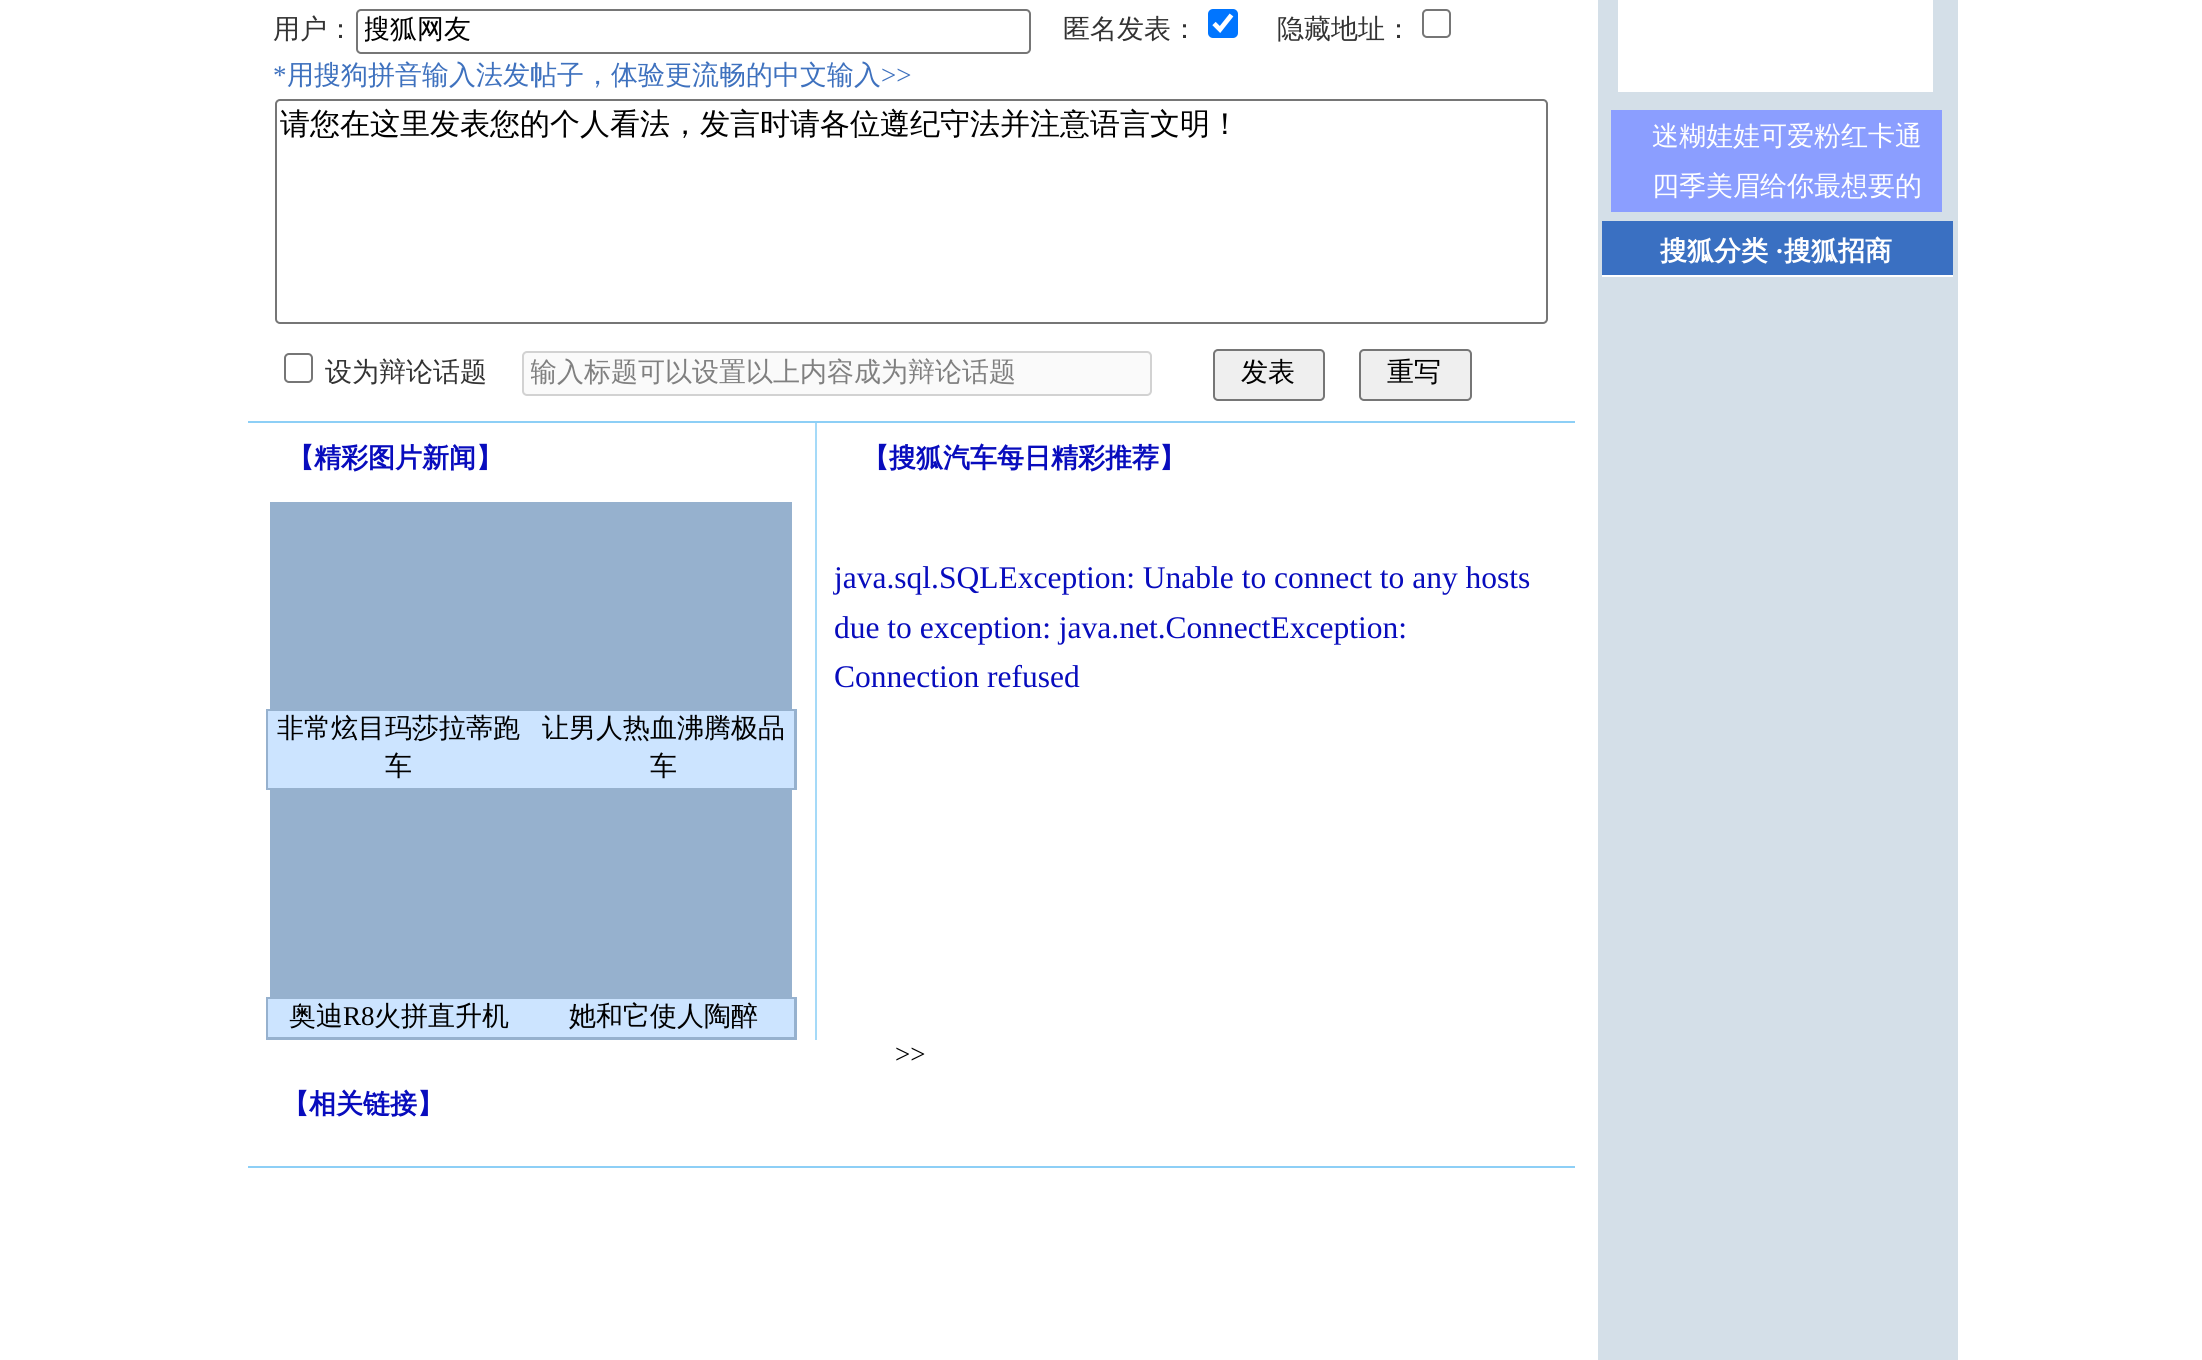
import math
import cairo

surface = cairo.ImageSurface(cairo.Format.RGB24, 2202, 1360)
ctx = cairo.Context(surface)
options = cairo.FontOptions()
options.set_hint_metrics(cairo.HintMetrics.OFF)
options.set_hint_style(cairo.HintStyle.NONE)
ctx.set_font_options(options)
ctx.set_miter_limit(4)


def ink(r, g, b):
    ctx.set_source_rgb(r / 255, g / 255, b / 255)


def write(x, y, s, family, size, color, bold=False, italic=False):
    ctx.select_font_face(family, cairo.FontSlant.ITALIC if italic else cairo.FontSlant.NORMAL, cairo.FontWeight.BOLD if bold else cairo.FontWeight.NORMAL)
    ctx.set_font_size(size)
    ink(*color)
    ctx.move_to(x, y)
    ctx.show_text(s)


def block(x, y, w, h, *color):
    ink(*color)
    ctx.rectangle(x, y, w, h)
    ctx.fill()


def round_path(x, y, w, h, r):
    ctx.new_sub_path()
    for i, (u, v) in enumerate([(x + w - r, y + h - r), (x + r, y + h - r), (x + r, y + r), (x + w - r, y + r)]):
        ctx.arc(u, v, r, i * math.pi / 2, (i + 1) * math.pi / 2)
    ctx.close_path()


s1 = dict(family="WenQuanYi Zen Hei Medium", size=27, color=(51, 51, 51))
s2 = dict(family="WenQuanYi Zen Hei Medium", size=27, color=(0, 0, 0))
s3 = dict(family="Liberation Serif", size=27, color=(62, 113, 190))
s4 = dict(family="WenQuanYi Zen Hei Medium", size=27, color=(62, 113, 190))
s5 = dict(family="WenQuanYi Zen Hei Medium", size=30, color=(0, 0, 0))
s6 = dict(family="WenQuanYi Zen Hei Medium", size=27, color=(128, 128, 128))
s7 = dict(family="WenQuanYi Zen Hei", size=27, color=(8, 12, 189), bold=True)
s8 = dict(family="Liberation Serif", size=27, color=(0, 0, 0))
s9 = dict(family="Liberation Serif", size=31.5, color=(8, 12, 189))
s10 = dict(family="WenQuanYi Zen Hei Medium", size=27, color=(255, 255, 255))
s11 = dict(family="WenQuanYi Zen Hei", size=27, color=(255, 255, 255), bold=True)
s12 = dict(family="Liberation Serif", size=27, color=(255, 255, 255), bold=True)

ink(255, 255, 255)
ctx.paint()
write(273, 38, "用户：", **s1)
round_path(357, 10, 673, 43, 4)
ink(118, 118, 118)
ctx.stroke()
ctx.save()
ctx.rectangle(365, 14, 657, 36)
ctx.clip()
write(363, 38, "搜狐网友", **s2)
ctx.restore()
write(1063, 38, "匿名发表：", **s1)
ink(0, 117, 255)
round_path(1208, 9, 30, 29, 5)
ctx.fill()
ctx.new_path()
ctx.move_to(1214, 23.5)
ctx.line_to(1220, 29.5)
ctx.line_to(1231.5, 15)
ink(255, 255, 255)
ctx.set_line_width(4.7)
ctx.stroke()
write(1277, 38, "隐藏地址：", **s1)
round_path(1423, 10, 27, 27, 4)
ink(118, 118, 118)
ctx.set_line_width(2)
ctx.stroke()
write(273, 84, "*", **s3)
write(287, 84, "用搜狗拼音输入法发帖子，体验更流畅的中文输入", **s4)
write(881, 84, ">>", **s3)
round_path(276, 100, 1271, 223, 4)
ink(118, 118, 118)
ctx.stroke()
write(280, 134, "请您在这里发表您的个人看法，发言时请各位遵纪守法并注意语言文明！", **s5)
round_path(285, 354, 27, 28, 4)
ink(118, 118, 118)
ctx.stroke()
write(325, 381, "设为辩论话题", **s1)
ink(250, 250, 250)
round_path(523, 352, 628, 43, 4)
ctx.fill_preserve()
ink(210, 210, 210)
ctx.stroke()
ctx.save()
ctx.rectangle(531, 356, 612, 36)
ctx.clip()
write(530, 381, "输入标题可以设置以上内容成为辩论话题", **s6)
ctx.restore()
ink(239, 239, 239)
round_path(1214, 350, 110, 50, 4)
ctx.fill_preserve()
ink(118, 118, 118)
ctx.stroke()
write(1241, 381, "发表", **s2)
ink(239, 239, 239)
round_path(1360, 350, 111, 50, 4)
ctx.fill_preserve()
ink(118, 118, 118)
ctx.stroke()
write(1387, 381, "重写", **s2)
block(248, 421, 1327, 2, 141, 207, 246)
write(287, 467, "【精彩图片新闻】", **s7)
block(270, 502, 522, 207, 150, 177, 206)
block(266, 709, 531, 81, 150, 177, 206)
block(268, 711, 526, 77, 204, 228, 255)
write(277, 737, "非常炫目玛莎拉蒂跑", **s2)
write(385, 775, "车", **s2)
write(542, 737, "让男人热血沸腾极品", **s2)
write(650, 775, "车", **s2)
block(270, 790, 522, 207, 150, 177, 206)
block(266, 997, 531, 43, 150, 177, 206)
block(268, 999, 526, 38, 204, 228, 255)
write(289, 1025, "奥迪", **s2)
write(343, 1025, "R8", **s8)
write(374, 1025, "火拼直升机", **s2)
write(569, 1025, "她和它使人陶醉", **s2)
block(815, 423, 2, 617, 165, 218, 248)
write(862, 467, "【搜狐汽车每日精彩推荐】", **s7)
write(834, 588, "java.sql.SQLException: Unable to connect to any hosts", **s9)
write(834, 638, "due to exception: java.net.ConnectException:", **s9)
write(834, 687, "Connection refused", **s9)
write(895, 1063, ">>", **s8)
write(282, 1113, "【相关链接】", **s7)
block(248, 1166, 1327, 2, 141, 207, 246)
block(1598, 0, 360, 1360, 212, 223, 232)
block(1618, 0, 315, 92, 255, 255, 255)
block(1611, 110, 331, 102, 139, 158, 255)
write(1652, 145, "迷糊娃娃可爱粉红卡通", **s10)
write(1652, 195, "四季美眉给你最想要的", **s10)
block(1602, 221, 351, 54, 58, 112, 194)
write(1660, 260, "搜狐分类", **s11)
write(1775, 260, "·", **s12)
write(1784, 260, "搜狐招商", **s11)
block(1602, 275, 351, 2, 255, 255, 255)
surface.write_to_png("screenshot.png")
